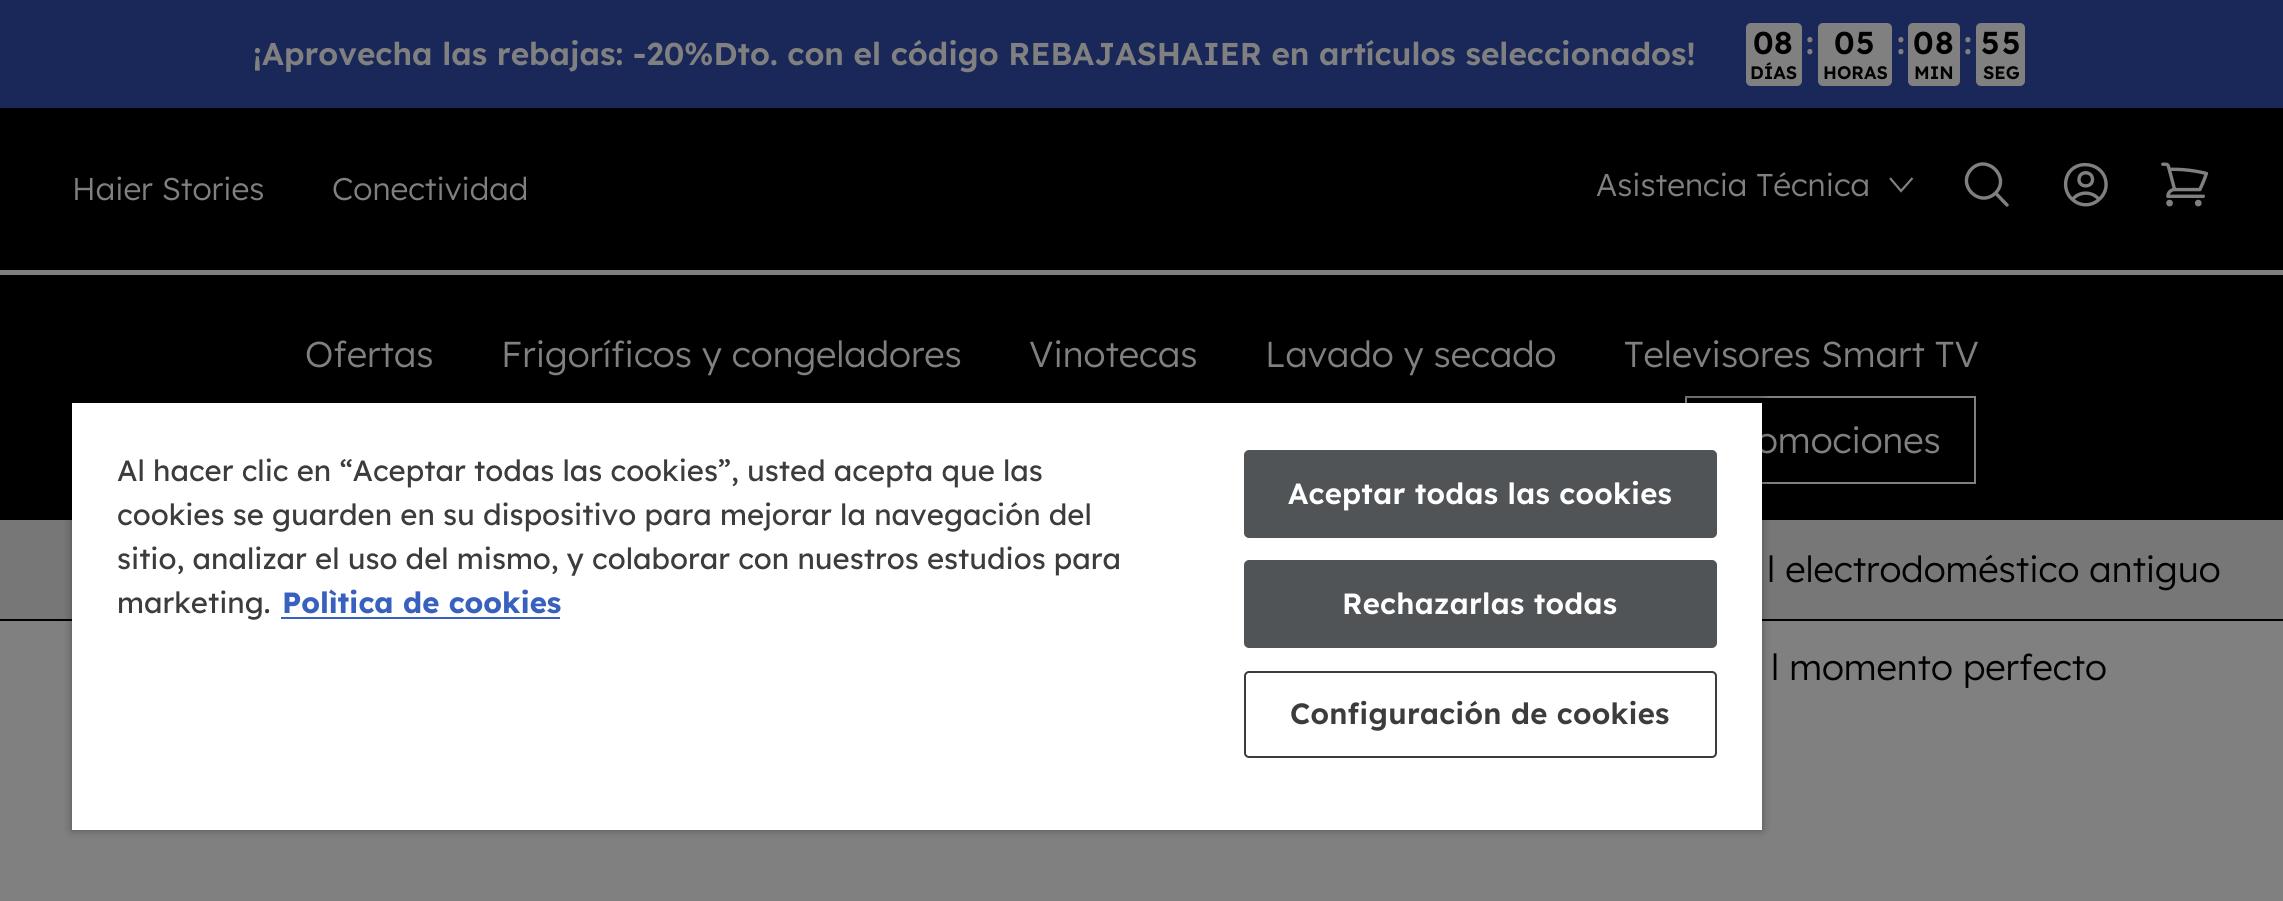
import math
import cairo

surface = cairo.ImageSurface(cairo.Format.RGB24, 2283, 901)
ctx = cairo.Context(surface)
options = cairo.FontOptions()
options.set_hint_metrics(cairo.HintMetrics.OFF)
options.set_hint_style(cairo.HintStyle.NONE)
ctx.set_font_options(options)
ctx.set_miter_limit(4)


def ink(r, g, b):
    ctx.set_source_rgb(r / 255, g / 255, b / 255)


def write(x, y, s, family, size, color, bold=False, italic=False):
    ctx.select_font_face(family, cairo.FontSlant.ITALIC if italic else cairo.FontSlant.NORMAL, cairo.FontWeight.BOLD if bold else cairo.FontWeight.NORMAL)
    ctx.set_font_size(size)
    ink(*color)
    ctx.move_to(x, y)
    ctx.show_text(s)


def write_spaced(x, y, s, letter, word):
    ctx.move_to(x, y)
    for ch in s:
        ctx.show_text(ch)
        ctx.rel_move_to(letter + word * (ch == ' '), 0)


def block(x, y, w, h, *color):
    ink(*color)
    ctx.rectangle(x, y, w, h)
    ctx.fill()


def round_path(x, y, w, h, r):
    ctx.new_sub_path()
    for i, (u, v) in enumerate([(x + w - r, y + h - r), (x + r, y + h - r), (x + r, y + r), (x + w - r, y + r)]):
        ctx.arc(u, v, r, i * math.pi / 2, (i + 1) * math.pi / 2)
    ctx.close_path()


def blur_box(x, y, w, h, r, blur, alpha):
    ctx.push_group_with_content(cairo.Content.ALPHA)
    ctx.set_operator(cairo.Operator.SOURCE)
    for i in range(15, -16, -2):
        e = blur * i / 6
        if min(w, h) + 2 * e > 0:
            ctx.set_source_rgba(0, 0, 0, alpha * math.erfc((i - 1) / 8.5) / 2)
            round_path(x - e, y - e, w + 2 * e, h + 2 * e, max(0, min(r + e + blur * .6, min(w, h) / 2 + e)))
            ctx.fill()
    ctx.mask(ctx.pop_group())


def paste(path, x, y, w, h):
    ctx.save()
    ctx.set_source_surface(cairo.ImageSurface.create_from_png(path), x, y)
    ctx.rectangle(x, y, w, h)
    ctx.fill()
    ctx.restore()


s1 = dict(family="Lexend SemiBold", size=31.5, color=(128, 128, 128))
s2 = dict(family="Lexend SemiBold", size=31.5, color=(0, 0, 0))
s3 = dict(family="Lexend SemiBold", size=18, color=(0, 0, 0))
s4 = dict(family="Lexend Light", size=31.5, color=(128, 128, 128))
s5 = dict(family="Lexend Light", size=36, color=(128, 128, 128))
s6 = dict(family="Lexend Light", size=36, color=(0, 0, 0))
s7 = dict(family="Lexend", size=29.25, color=(60, 60, 62))
s8 = dict(family="Lexend", size=29.25, color=(56, 96, 190), bold=True)

ink(128, 128, 128)
ctx.paint()
block(0, 0, 2283, 108, 25, 39, 89)
write(253, 65, "¡Aprovecha las rebajas: -20%Dto. con el código REBAJASHAIER en artículos seleccionados!", **s1)
round_path(1746, 23, 56, 63, 5)
ctx.fill()
write(1753, 54, "0", **s2)
write(1774, 54, "8", **s2)
write(1750, 79, "DÍAS", **s3)
write(1806, 54, ":", **s1)
round_path(1818, 23, 74, 63, 5)
ctx.fill()
write(1834, 54, "0", **s2)
write(1856, 54, "5", **s2)
write(1823, 79, "HORAS", **s3)
write(1897, 54, ":", **s1)
round_path(1908, 23, 52, 63, 5)
ctx.fill()
write(1913, 54, "0", **s2)
write(1935, 54, "8", **s2)
write(1914, 79, "MIN", **s3)
write(1964, 54, ":", **s1)
round_path(1976, 23, 49, 63, 5)
ctx.fill()
write(1981, 54, "5", **s2)
write(2002, 54, "5", **s2)
write(1983, 79, "SEG", **s3)
block(0, 108, 2283, 412, 0, 0, 0)
block(0, 270, 2283, 5, 128, 128, 128)
write(72, 200, "Haier Stories", **s4)
write(332, 200, "Conectividad", **s4)
ctx.new_path()
ctx.move_to(1890, 178)
ctx.line_to(1901, 191)
ctx.line_to(1912.5, 178)
ctx.set_line_width(2.2)
ctx.stroke()
write(1596, 196, "Asistencia Técnica", **s4)
ctx.new_path()
ctx.move_to(2007, 205)
ctx.line_to(1995.5, 193)
ctx.move_to(1995.5, 193)
ctx.curve_to(2011, 177.5, 1987, 153.5, 1971.5, 169)
ctx.curve_to(1956, 185, 1979.5, 208.5, 1995.5, 193)
ctx.close_path()
ctx.set_line_width(3.4)
ctx.set_line_cap(cairo.LineCap.ROUND)
ctx.set_line_join(cairo.LineJoin.ROUND)
ctx.stroke()
ctx.new_path()
ctx.move_to(2099, 199.5)
ctx.curve_to(2092.5, 191, 2079, 191, 2072.5, 199.5)
ctx.move_to(2099, 199.5)
ctx.curve_to(2103, 196, 2105.5, 191.5, 2106, 186.5)
ctx.curve_to(2108, 161.5, 2071, 156, 2066, 180)
ctx.curve_to(2064.5, 187.5, 2067, 195, 2072.5, 199.5)
ctx.move_to(2099, 199.5)
ctx.curve_to(2091.5, 206.5, 2080, 206.5, 2072.5, 199.5)
ctx.move_to(2092.5, 179.5)
ctx.curve_to(2092.5, 188, 2079, 188, 2079, 179.5)
ctx.curve_to(2079, 170.5, 2092.5, 170.5, 2092.5, 179.5)
ctx.close_path()
ctx.stroke()
paste("pic1.png", 2161, 162, 48, 45)
write(305, 367, "Ofertas", **s5)
write(501, 367, "Frigoríficos y congeladores", **s5)
write(1029, 367, "Vinotecas", **s5)
write(1265, 367, "Lavado y secado", **s5)
write(1624, 367, "Televisores Smart TV", **s5)
ctx.rectangle(1686, 397, 289, 86)
ctx.set_line_width(2)
ctx.set_line_cap(cairo.LineCap.BUTT)
ctx.set_line_join(cairo.LineJoin.MITER)
ctx.stroke()
write(1756, 453, "omociones", **s5)
block(0, 520, 2283, 99, 119, 119, 119)
block(0, 619, 2283, 2, 0, 0, 0)
write(1767, 582, "l electrodoméstico antiguo", **s6)
ctx.save()
ctx.set_fill_rule(cairo.FillRule.EVEN_ODD)
ctx.new_path()
ctx.move_to(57, 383)
ctx.line_to(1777, 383)
ctx.line_to(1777, 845)
ctx.line_to(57, 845)
ctx.close_path()
ctx.move_to(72, 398)
ctx.line_to(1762, 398)
ctx.line_to(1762, 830)
ctx.line_to(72, 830)
ctx.close_path()
ctx.clip()
ink(0, 0, 0)
blur_box(72, 398, 1690, 432, 0, 4.5, 0.35)
ctx.restore()
ctx.save()
ctx.rectangle(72, 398, 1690, 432)
ctx.clip()
ink(0, 0, 0)
blur_box(72, 403, 1690, 427, 0, 4.5, 0.2)
ctx.restore()
block(72, 403, 1690, 427, 255, 255, 255)
write(117, 481, "Al hacer clic en “Aceptar todas las cookies”, usted acepta que las", **s7)
write(117, 525, "cookies se guarden en su dispositivo para mejorar la navegación del", **s7)
write(117, 569, "sitio, analizar el uso del mismo, y colaborar con nuestros estudios para", **s7)
write(117, 613, "marketing.", **s7)
write(282, 613, "Polìtica de cookies", **s8)
block(281, 617, 279, 2, 56, 96, 190)
ink(80, 84, 86)
round_path(1245, 451, 471, 86, 4)
ctx.fill_preserve()
ctx.stroke()
ctx.select_font_face("Lexend SemiBold")
ink(255, 255, 255)
write_spaced(1288, 504, "Aceptar todas las cookies", 0.25, 0)
ink(80, 84, 86)
round_path(1245, 561, 471, 86, 4)
ctx.fill_preserve()
ctx.stroke()
ink(255, 255, 255)
write_spaced(1342, 614, "Rechazarlas todas", 0.25, 0)
round_path(1245, 672, 471, 85, 4)
ink(60, 60, 62)
ctx.stroke()
write_spaced(1290, 724, "Configuración de cookies", 0.25, 0)
write(1771, 680, "l momento perfecto", **s6)
surface.write_to_png("screenshot.png")
